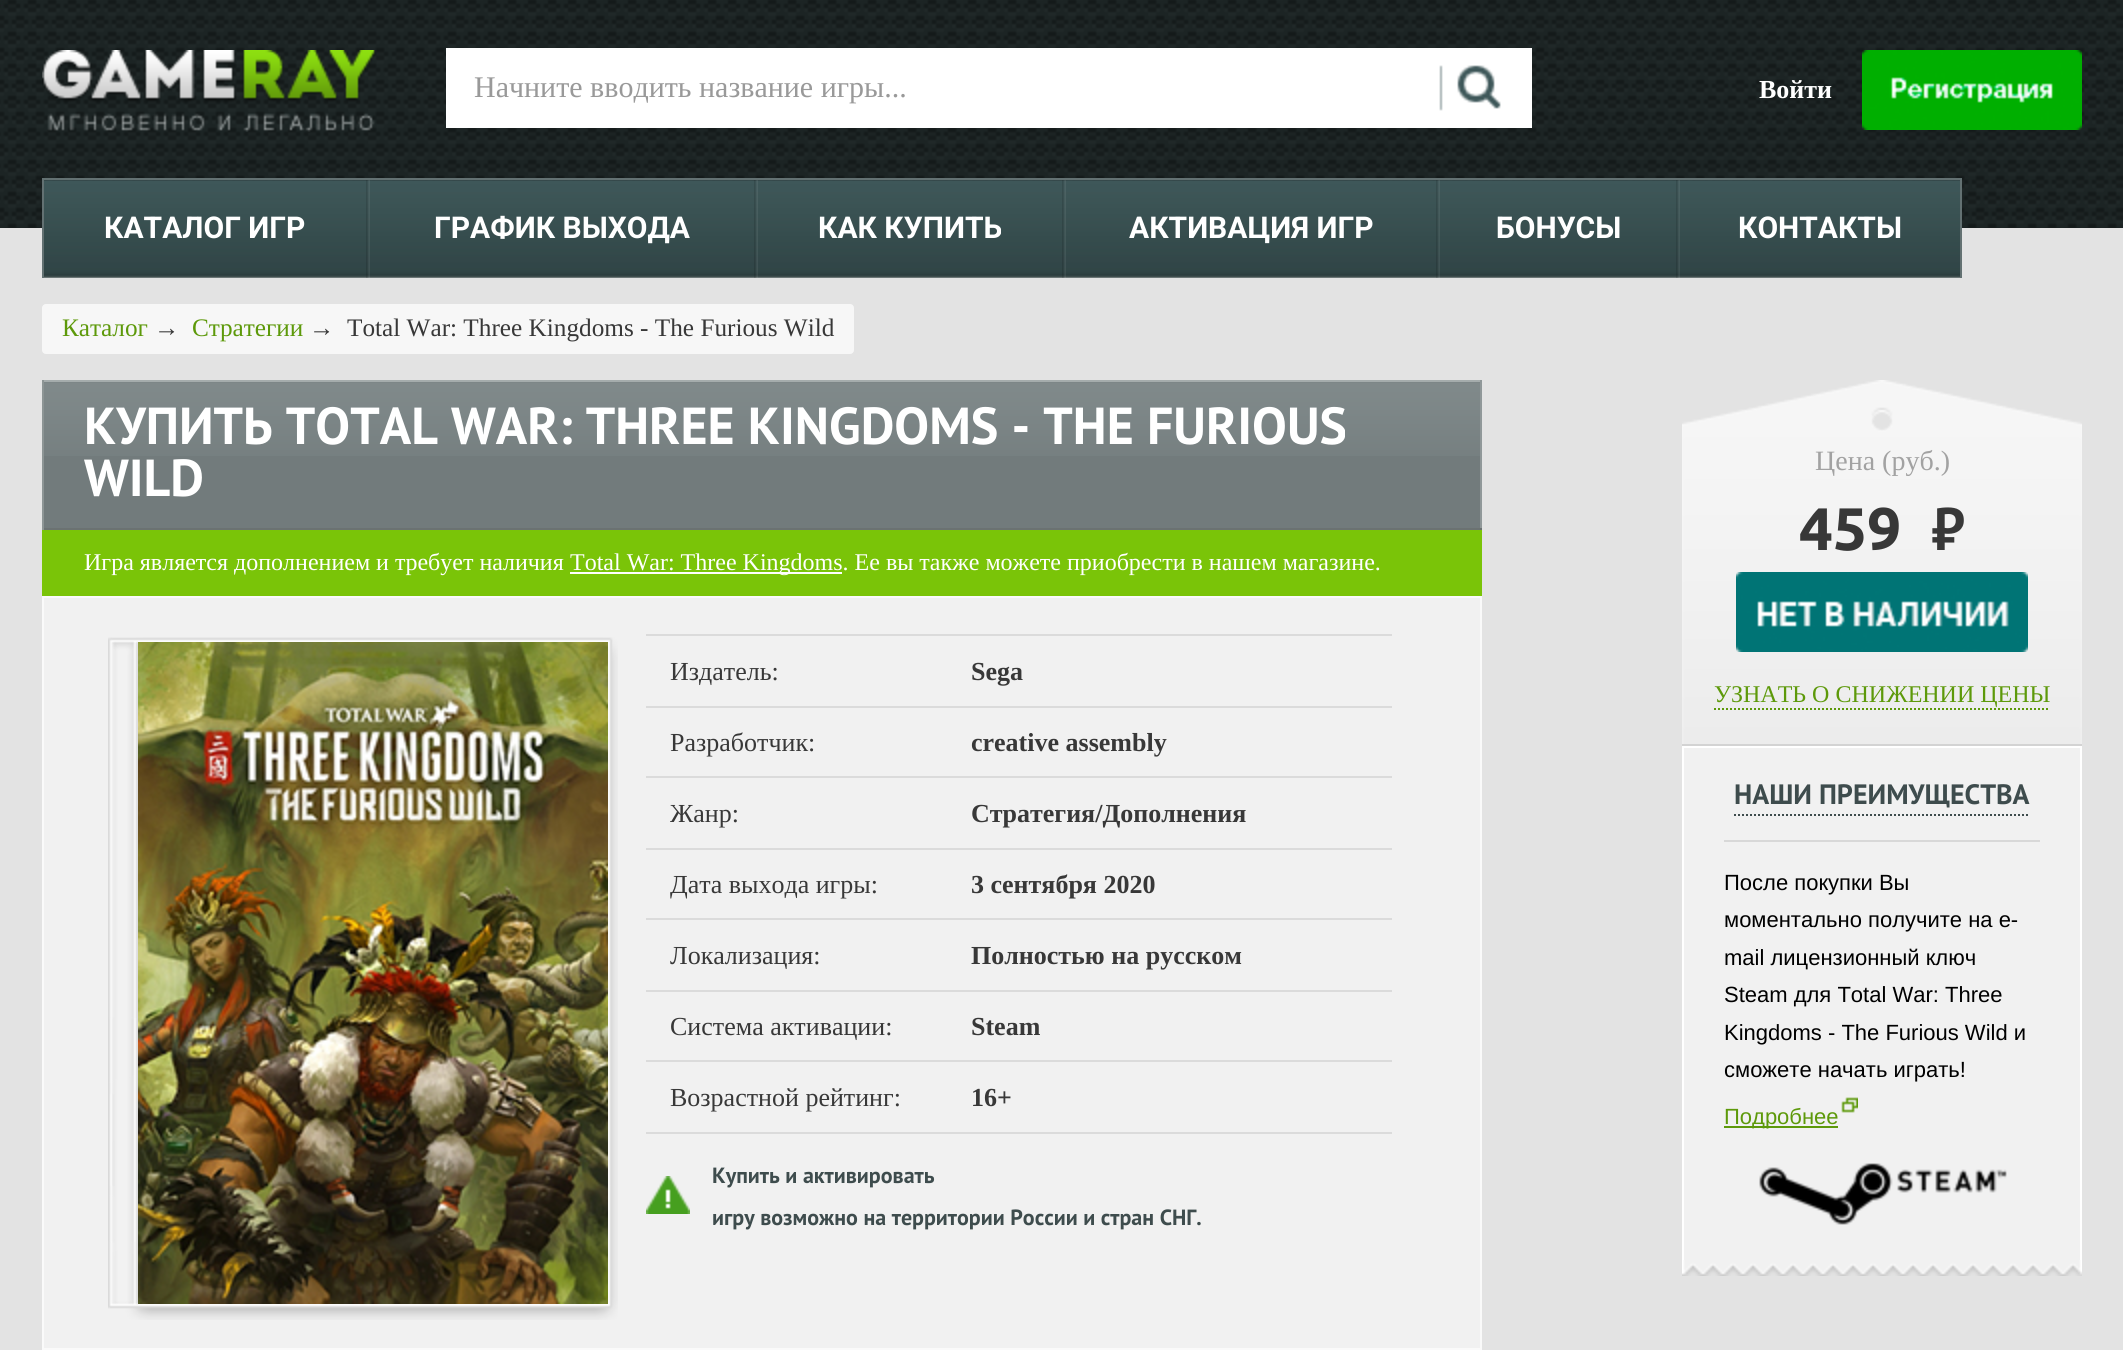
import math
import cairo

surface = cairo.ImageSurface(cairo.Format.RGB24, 2123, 1350)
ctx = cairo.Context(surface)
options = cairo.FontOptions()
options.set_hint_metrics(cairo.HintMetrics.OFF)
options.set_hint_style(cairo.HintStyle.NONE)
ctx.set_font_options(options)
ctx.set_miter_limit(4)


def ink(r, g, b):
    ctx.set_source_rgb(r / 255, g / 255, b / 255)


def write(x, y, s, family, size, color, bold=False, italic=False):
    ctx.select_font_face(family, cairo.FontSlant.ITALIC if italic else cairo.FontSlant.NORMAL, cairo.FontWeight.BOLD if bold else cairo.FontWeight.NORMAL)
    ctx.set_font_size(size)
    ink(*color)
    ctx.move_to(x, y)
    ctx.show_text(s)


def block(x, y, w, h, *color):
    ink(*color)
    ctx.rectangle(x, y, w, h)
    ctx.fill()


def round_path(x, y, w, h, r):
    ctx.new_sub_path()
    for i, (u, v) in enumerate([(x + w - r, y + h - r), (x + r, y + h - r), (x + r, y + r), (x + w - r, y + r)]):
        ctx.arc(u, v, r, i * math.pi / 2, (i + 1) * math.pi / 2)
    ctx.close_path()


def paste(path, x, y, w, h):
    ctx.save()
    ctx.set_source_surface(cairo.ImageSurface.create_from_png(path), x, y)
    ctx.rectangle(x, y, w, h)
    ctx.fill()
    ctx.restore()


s1 = dict(family="Liberation Serif", size=30, color=(153, 153, 153))
s2 = dict(family="Liberation Serif", size=26, color=(255, 255, 255), bold=True)
s3 = dict(family="Roboto", size=30, color=(255, 255, 255), bold=True)
s4 = dict(family="Liberation Serif", size=25.25, color=(93, 153, 10))
s5 = dict(family="Liberation Serif", size=25.25, color=(56, 56, 56))
s6 = dict(family="PT Sans", size=52, color=(255, 255, 255), bold=True)
s7 = dict(family="Liberation Serif", size=24, color=(255, 255, 255))
s8 = dict(family="Liberation Serif", size=26, color=(56, 56, 56))
s9 = dict(family="Liberation Serif", size=26, color=(56, 56, 56), bold=True)
s10 = dict(family="PT Sans", size=22, color=(62, 76, 77), bold=True)
s11 = dict(family="Liberation Serif", size=28, color=(162, 162, 162))
s12 = dict(family="Ubuntu", size=60, color=(56, 56, 56), bold=True)
s13 = dict(family="PT Sans", size=60, color=(56, 56, 56), bold=True)
s14 = dict(family="Liberation Serif", size=24, color=(93, 153, 10))
s15 = dict(family="PT Sans", size=28, color=(62, 76, 77), bold=True)
s16 = dict(family="Liberation Sans", size=22, color=(0, 0, 0))
s17 = dict(family="Liberation Sans", size=22, color=(93, 153, 10))

ink(227, 227, 227)
ctx.paint()
paste("pic1.png", 0, 0, 2123, 228)
paste("pic2.png", 42, 50, 333, 82)
ink(255, 255, 255)
round_path(446, 48, 1086, 80, 2)
ctx.fill()
paste("pic3.png", 1439, 65, 62, 46)
ctx.rectangle(448, 50, 1082, 76)
ctx.set_line_width(4)
ctx.stroke()
write(474, 97, "Начните вводить название игры...", **s1)
write(1759, 98, "Войти", **s2)
paste("pic4.png", 1862, 50, 220, 80)
paste("pic5.png", 44, 180, 1916, 98)
block(42, 178, 1920, 2, 99, 113, 114)
block(1960, 178, 2, 100, 99, 113, 114)
block(42, 178, 2, 100, 99, 113, 114)
write(104, 238, "КАТАЛОГ ИГР", **s3)
paste("pic6.png", 366, 180, 4, 98)
write(434, 238, "ГРАФИК ВЫХОДА", **s3)
paste("pic7.png", 754, 180, 4, 98)
write(818, 238, "КАК КУПИТЬ", **s3)
paste("pic8.png", 1062, 180, 4, 98)
write(1129, 238, "АКТИВАЦИЯ ИГР", **s3)
paste("pic9.png", 1436, 180, 4, 98)
write(1496, 238, "БОНУСЫ", **s3)
paste("pic9.png", 1676, 180, 4, 98)
write(1738, 238, "КОНТАКТЫ", **s3)
ink(247, 247, 247)
round_path(42, 304, 812, 50, 4)
ctx.fill()
write(62, 336, "Каталог", **s4)
write(154, 336, "→", **s5)
write(192, 336, "Стратегии", **s4)
write(309, 336, "→", **s5)
write(347, 336, "Total War: Three Kingdoms - The Furious Wild", **s5)
block(44, 382, 1436, 146, 114, 123, 124)
paste("pic10.png", 44, 382, 1436, 74)
block(42, 380, 1440, 2, 165, 172, 172)
block(1480, 380, 2, 150, 144, 152, 153)
block(42, 528, 1440, 2, 107, 114, 114)
block(42, 380, 2, 150, 141, 149, 149)
write(84, 444, "КУПИТЬ TOTAL WAR: THREE KINGDOMS - THE FURIOUS", **s6)
write(84, 496, "WILD", **s6)
block(42, 530, 1440, 66, 122, 196, 8)
write(84, 570, "Игра является дополнением и требует наличия", **s7)
block(570, 572, 272, 2, 255, 255, 255)
write(570, 570, "Total War: Three Kingdoms. Ее вы также можете приобрести в нашем магазине.", **s7)
ink(241, 241, 241)
ctx.rectangle(43, 597, 1438, 752)
ctx.fill_preserve()
ink(250, 250, 250)
ctx.set_line_width(2)
ctx.stroke()
paste("pic11.png", 108, 637, 510, 683)
paste("pic12.png", 138, 642, 470, 662)
write(670, 680, "Издатель:", **s8)
block(646, 634, 746, 2, 219, 219, 219)
write(971, 680, "Sega", **s9)
write(670, 751, "Разработчик:", **s8)
block(646, 706, 746, 2, 219, 219, 219)
write(971, 751, "creative assembly", **s9)
write(670, 822, "Жанр:", **s8)
block(646, 776, 746, 2, 219, 219, 219)
write(971, 822, "Стратегия/Дополнения", **s9)
write(670, 893, "Дата выхода игры:", **s8)
block(646, 848, 746, 2, 219, 219, 219)
write(971, 893, "3 сентября 2020", **s9)
write(670, 964, "Локализация:", **s8)
block(646, 918, 746, 2, 219, 219, 219)
write(971, 964, "Полностью на русском", **s9)
write(670, 1035, "Система активации:", **s8)
block(646, 990, 746, 2, 219, 219, 219)
write(971, 1035, "Steam", **s9)
write(670, 1106, "Возрастной рейтинг:", **s8)
block(646, 1060, 746, 2, 219, 219, 219)
block(646, 1132, 746, 2, 219, 219, 219)
write(971, 1106, "16+", **s9)
paste("pic13.png", 646, 1176, 44, 38)
write(712, 1183, "Купить и активировать", **s10)
write(712, 1225, "игру возможно на территории России и стран СНГ.", **s10)
paste("pic14.png", 1682, 380, 400, 364)
block(1682, 744, 400, 2, 211, 211, 211)
write(1815, 470, "Цена (руб.)", **s11)
write(1799, 550, "459", **s12)
write(1931, 550, "₽", **s13)
paste("pic15.png", 1736, 572, 292, 80)
write(1714, 702, "УЗНАТЬ О СНИЖЕНИИ ЦЕНЫ", **s14)
ctx.new_path()
ctx.move_to(1714, 709)
ctx.line_to(2050, 709)
ctx.set_dash([2, 2])
ctx.stroke()
block(1684, 748, 396, 512, 241, 241, 241)
block(1682, 746, 400, 2, 255, 255, 255)
block(2080, 746, 2, 514, 255, 255, 255)
block(1682, 746, 2, 514, 255, 255, 255)
ctx.new_path()
ctx.move_to(1734, 815)
ctx.line_to(2030, 815)
ink(62, 76, 77)
ctx.stroke()
write(1734, 804, "НАШИ ПРЕИМУЩЕСТВА", **s15)
block(1724, 840, 316, 2, 216, 216, 216)
write(1724, 890, "После покупки Вы", **s16)
write(1724, 927, "моментально получите на e-", **s16)
write(1724, 965, "mail лицензионный ключ", **s16)
write(1724, 1002, "Steam для Total War: Three", **s16)
write(1724, 1040, "Kingdoms - The Furious Wild и", **s16)
write(1724, 1077, "сможете начать играть!", **s16)
paste("pic16.png", 1841, 1097, 17, 16)
block(1724, 1126, 114, 2, 93, 153, 10)
write(1724, 1124, "Подробнее", **s17)
paste("pic17.png", 1759, 1163, 248, 62)
paste("pic18.png", 1682, 1260, 400, 16)
surface.write_to_png("screenshot.png")
